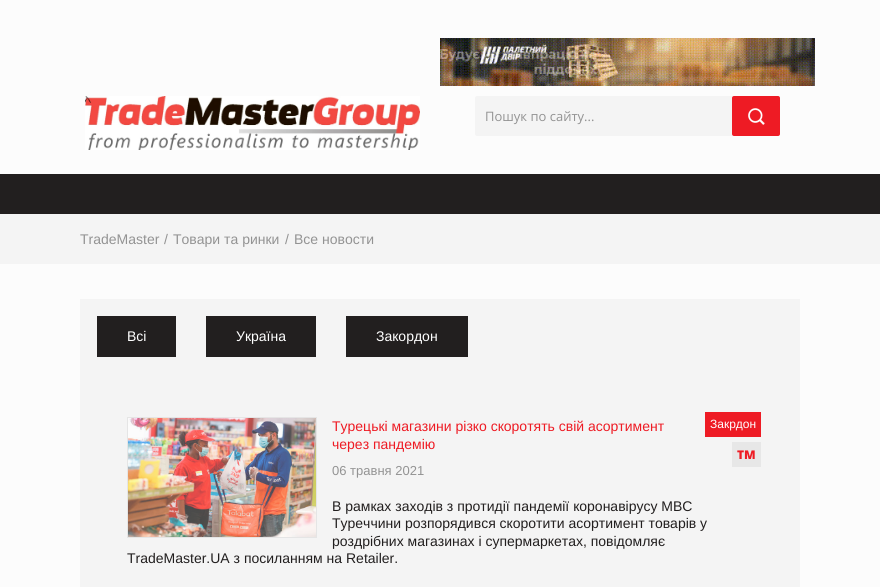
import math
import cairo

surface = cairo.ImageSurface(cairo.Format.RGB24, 880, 587)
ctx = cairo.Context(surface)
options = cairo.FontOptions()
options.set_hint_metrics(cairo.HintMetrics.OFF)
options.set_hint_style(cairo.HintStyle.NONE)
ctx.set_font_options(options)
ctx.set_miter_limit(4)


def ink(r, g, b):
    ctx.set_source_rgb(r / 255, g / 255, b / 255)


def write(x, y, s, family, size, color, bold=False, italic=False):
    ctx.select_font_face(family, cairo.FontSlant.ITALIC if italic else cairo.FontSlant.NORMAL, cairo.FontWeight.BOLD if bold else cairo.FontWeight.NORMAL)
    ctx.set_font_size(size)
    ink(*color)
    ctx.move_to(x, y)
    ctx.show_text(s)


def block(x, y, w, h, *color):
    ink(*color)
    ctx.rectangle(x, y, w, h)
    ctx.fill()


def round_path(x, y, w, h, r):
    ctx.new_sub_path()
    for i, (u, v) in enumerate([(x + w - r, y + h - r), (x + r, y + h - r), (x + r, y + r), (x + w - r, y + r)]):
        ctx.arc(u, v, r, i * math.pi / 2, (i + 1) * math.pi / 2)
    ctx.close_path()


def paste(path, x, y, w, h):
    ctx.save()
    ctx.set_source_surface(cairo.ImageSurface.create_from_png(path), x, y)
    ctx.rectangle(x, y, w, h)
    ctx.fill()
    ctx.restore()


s1 = dict(family="Open Sans", size=13, color=(147, 147, 147))
s2 = dict(family="Liberation Sans", size=14, color=(147, 147, 147))
s3 = dict(family="Liberation Sans", size=14, color=(255, 255, 255))
s4 = dict(family="Liberation Sans", size=14, color=(238, 27, 36))
s5 = dict(family="Liberation Sans", size=12, color=(255, 255, 255))
s6 = dict(family="Open Sans ExtraBold", size=12, color=(238, 27, 36))
s7 = dict(family="Liberation Sans", size=13, color=(147, 147, 147))
s8 = dict(family="Liberation Sans", size=14, color=(34, 31, 31))

ink(252, 252, 252)
ctx.paint()
paste("pic1.png", 440, 38, 375, 48)
paste("pic2.png", 85, 96, 335, 54)
ink(244, 244, 244)
round_path(475, 96, 305, 40, 2)
ctx.fill()
write(485, 121, "Пошук по сайту...", **s1)
ink(238, 27, 36)
round_path(732, 96, 48, 40, 2)
ctx.fill()
paste("pic3.png", 748, 108, 17, 17)
block(0, 174, 880, 40, 34, 31, 31)
block(0, 214, 880, 50, 244, 244, 244)
write(80, 244, "TradeMaster", **s2)
write(164, 244, "/", **s2)
write(173, 244, "Товари та ринки", **s2)
write(285, 244, "/", **s2)
write(294, 244, "Все новости", **s2)
block(80, 299, 720, 288, 244, 244, 244)
block(97, 316, 79, 41, 34, 31, 31)
write(127, 341, "Всі", **s3)
block(206, 316, 110, 41, 34, 31, 31)
write(236, 341, "Україна", **s3)
block(346, 316, 122, 41, 34, 31, 31)
write(376, 341, "Закордон", **s3)
ctx.rectangle(127.5, 417.5, 189, 120)
ink(229, 229, 229)
ctx.set_line_width(1)
ctx.stroke()
paste("pic4.png", 128, 418, 188, 119)
write(332, 431, "Турецькі магазини різко скоротять свій асортимент", **s4)
write(332, 449, "через пандемію", **s4)
block(705, 412, 56, 25, 238, 27, 36)
write(710, 428, "Закрдон", **s5)
block(732, 442, 29, 25, 231, 231, 231)
write(737, 459, "ТМ", **s6)
write(332, 475, "06 травня 2021", **s7)
write(332, 511, "В рамках заходів з протидії пандемії коронавірусу МВС", **s8)
write(332, 528, "Туреччини розпорядився скоротити асортимент товарів у", **s8)
write(332, 546, "роздрібних магазинах і супермаркетах, повідомляє", **s8)
write(127, 563, "TradeMaster.UA з посиланням на Retailer.", **s8)
surface.write_to_png("screenshot.png")
